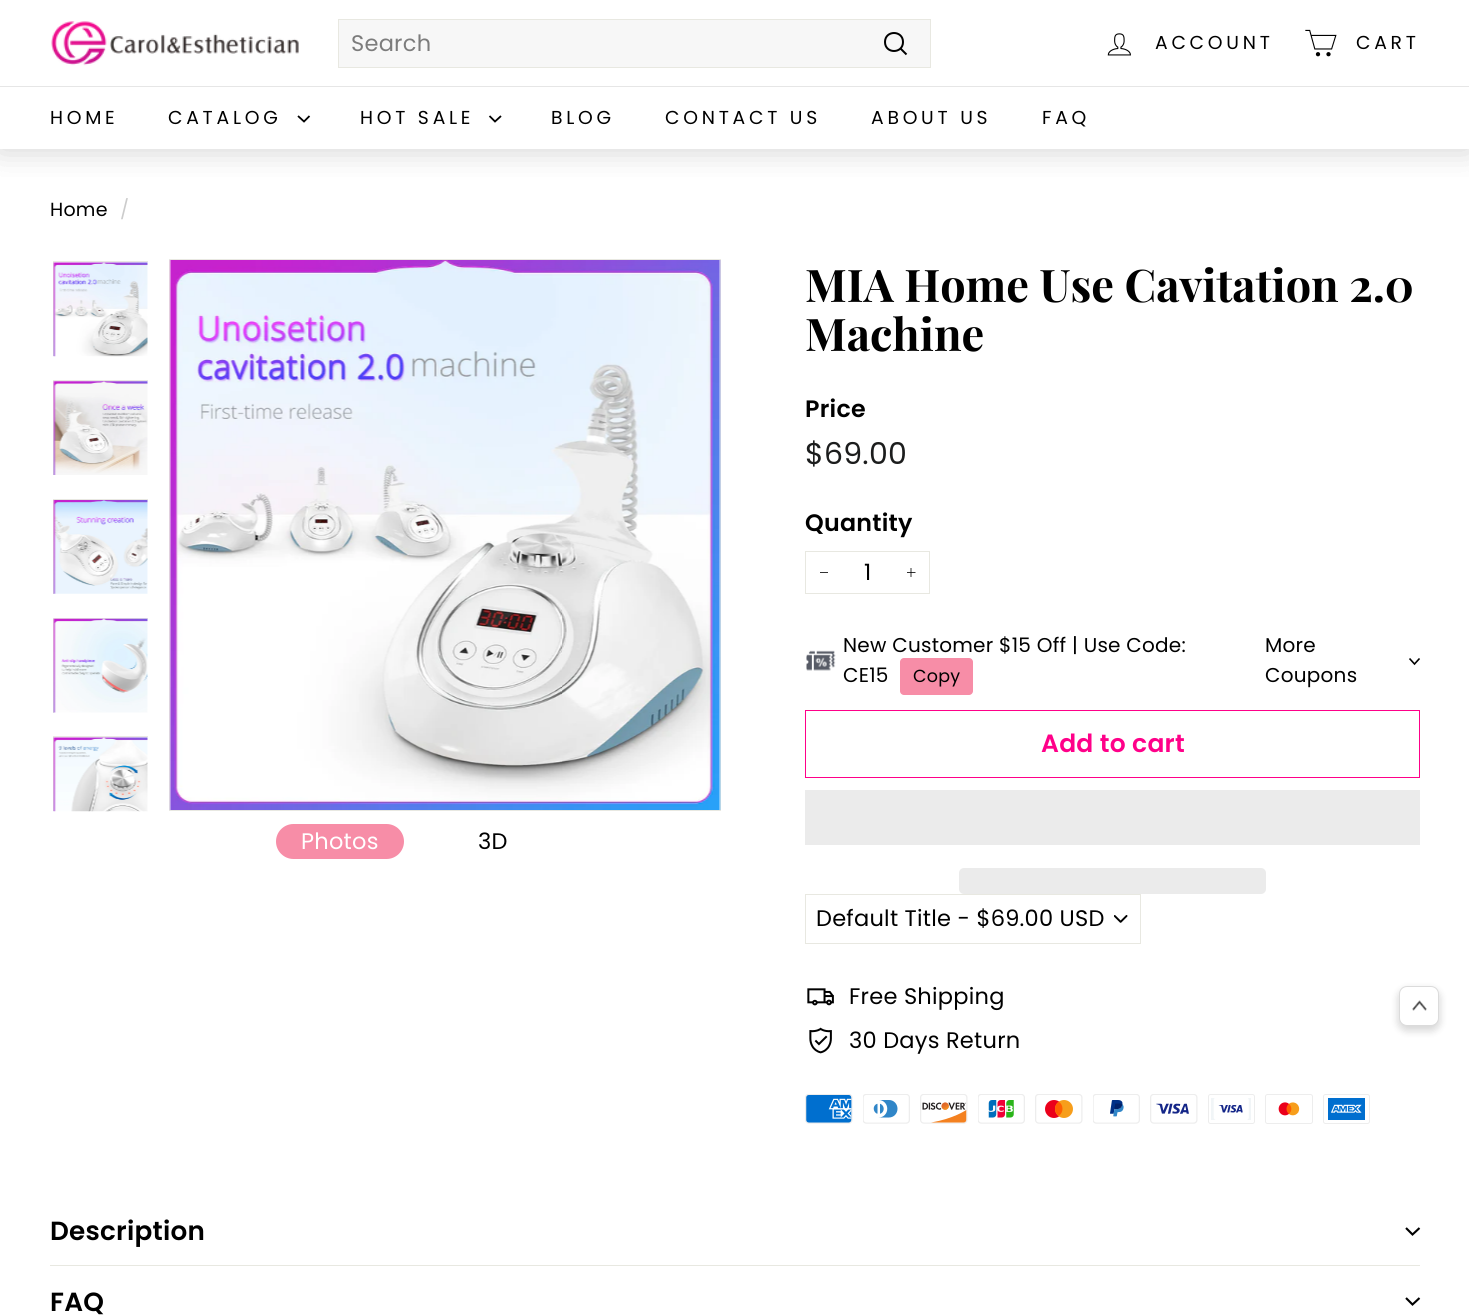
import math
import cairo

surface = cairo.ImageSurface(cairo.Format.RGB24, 1469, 1316)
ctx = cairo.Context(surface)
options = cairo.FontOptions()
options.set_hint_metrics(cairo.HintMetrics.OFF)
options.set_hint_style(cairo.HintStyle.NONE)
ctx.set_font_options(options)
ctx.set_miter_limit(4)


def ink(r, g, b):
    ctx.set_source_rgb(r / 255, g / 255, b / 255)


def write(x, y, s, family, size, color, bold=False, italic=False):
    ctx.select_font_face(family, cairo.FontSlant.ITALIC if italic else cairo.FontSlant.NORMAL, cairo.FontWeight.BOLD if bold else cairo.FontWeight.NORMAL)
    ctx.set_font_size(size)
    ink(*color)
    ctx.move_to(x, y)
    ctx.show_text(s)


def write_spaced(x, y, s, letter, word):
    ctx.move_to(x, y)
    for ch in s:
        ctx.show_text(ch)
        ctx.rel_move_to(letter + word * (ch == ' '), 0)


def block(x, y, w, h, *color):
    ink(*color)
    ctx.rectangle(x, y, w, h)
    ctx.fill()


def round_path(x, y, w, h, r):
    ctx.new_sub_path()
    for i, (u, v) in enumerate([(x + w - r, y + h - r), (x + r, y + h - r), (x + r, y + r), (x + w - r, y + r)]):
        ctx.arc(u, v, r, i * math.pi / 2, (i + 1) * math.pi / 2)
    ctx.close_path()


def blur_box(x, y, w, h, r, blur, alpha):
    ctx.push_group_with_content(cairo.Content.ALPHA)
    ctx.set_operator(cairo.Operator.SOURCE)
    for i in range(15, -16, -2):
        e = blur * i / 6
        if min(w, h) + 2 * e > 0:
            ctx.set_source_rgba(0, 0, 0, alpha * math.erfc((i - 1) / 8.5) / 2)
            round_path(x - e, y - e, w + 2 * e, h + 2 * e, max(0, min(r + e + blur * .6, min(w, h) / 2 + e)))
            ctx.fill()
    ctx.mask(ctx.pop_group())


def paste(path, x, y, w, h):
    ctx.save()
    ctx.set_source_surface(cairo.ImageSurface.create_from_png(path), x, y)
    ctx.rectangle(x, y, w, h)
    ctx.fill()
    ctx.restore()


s1 = dict(family="Playfair Display", size=45, color=(0, 0, 0), bold=True)

ink(255, 255, 255)
ctx.paint()
ink(0, 0, 0)
blur_box(0, 0, 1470, 149, 0, 15.5, 0.1)
blur_box(0, 86, 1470, 63, 0, 15.5, 0.1)
block(0, 0, 1469, 86, 255, 255, 255)
paste("pic1.png", 51, 21, 248, 45)
ink(247, 247, 247)
ctx.rectangle(338.5, 19.5, 592, 48)
ctx.fill_preserve()
ink(232, 232, 225)
ctx.set_line_width(1)
ctx.stroke()
ctx.select_font_face("Poppins")
ctx.set_font_size(22.5)
ink(124, 124, 124)
write_spaced(351, 51, "Search", 0.25, 0)
ctx.new_path()
ctx.move_to(903, 42)
ctx.curve_to(903, 54, 885, 54, 885, 42)
ctx.curve_to(885, 30, 903, 30, 903, 42)
ctx.close_path()
ctx.move_to(906.5, 54.5)
ctx.line_to(900.5, 48.5)
ink(0, 0, 0)
ctx.set_line_width(2)
ctx.stroke()
paste("pic2.png", 1107, 33, 24, 23)
ctx.set_font_size(18.75)
write_spaced(1155, 49, "ACCOUNT", 3.75, 0)
paste("pic3.png", 1305, 29, 32, 28)
write_spaced(1356, 49, "CART", 3.75, 0)
block(0, 87, 1469, 62, 255, 255, 255)
block(0, 86, 1469, 1, 230, 230, 230)
ink(0, 0, 0)
write_spaced(50, 124, "HOME", 3.75, 0)
write_spaced(168, 124, "CATALOG", 3.75, 0)
ctx.new_path()
ctx.move_to(298, 116)
ctx.line_to(304, 121.5)
ctx.line_to(309.5, 116)
ctx.set_line_width(1.8)
ctx.stroke()
write_spaced(360, 124, "HOT SALE", 3.75, 0)
ctx.new_path()
ctx.move_to(489.5, 116)
ctx.line_to(495, 121.5)
ctx.line_to(501, 116)
ctx.stroke()
write_spaced(551, 124, "BLOG", 3.75, 0)
write_spaced(665, 124, "CONTACT US", 3.75, 0)
write_spaced(871, 124, "ABOUT US", 3.75, 0)
write_spaced(1042, 124, "FAQ", 3.75, 0)
ctx.set_font_size(19)
write_spaced(50, 216, "Home", 0.25, 0)
ink(204, 204, 204)
write_spaced(120, 216, "/", 0.25, 0)
ctx.save()
ctx.rectangle(53, 261, 95, 95)
ctx.clip()
ctx.rectangle(53.5, 261.5, 101, 102)
ink(232, 232, 225)
ctx.set_line_width(1)
ctx.stroke()
ctx.restore()
paste("pic4.png", 53, 262, 95, 95)
ctx.save()
ctx.rectangle(53, 380, 95, 95)
ctx.clip()
ctx.rectangle(53.5, 380.5, 101, 102)
ink(232, 232, 225)
ctx.set_line_width(1)
ctx.stroke()
ctx.restore()
paste("pic5.png", 53, 381, 95, 94)
ctx.save()
ctx.rectangle(53, 499, 95, 95)
ctx.clip()
ctx.rectangle(53.5, 499.5, 101, 101)
ink(232, 232, 225)
ctx.set_line_width(1)
ctx.stroke()
ctx.restore()
paste("pic6.png", 53, 500, 95, 94)
ctx.save()
ctx.rectangle(53, 618, 95, 95)
ctx.clip()
ctx.rectangle(53.5, 618.5, 101, 101)
ink(232, 232, 225)
ctx.set_line_width(1)
ctx.stroke()
ctx.restore()
paste("pic7.png", 53, 618, 95, 95)
ctx.save()
ctx.rectangle(53, 736, 95, 75)
ctx.clip()
ctx.rectangle(53.5, 736.5, 101, 102)
ink(232, 232, 225)
ctx.set_line_width(1)
ctx.stroke()
ctx.restore()
paste("pic8.png", 53, 737, 95, 75)
ctx.rectangle(169.5, 259.5, 551, 551)
ink(232, 232, 225)
ctx.set_line_width(1)
ctx.stroke()
paste("pic9.png", 169, 260, 552, 550)
ink(247, 141, 167)
round_path(276, 824, 128, 35, 17.5)
ctx.fill()
ctx.set_font_size(22.5)
ink(255, 255, 255)
write_spaced(301, 849, "Photos", 0.25, 0)
ink(0, 0, 0)
write_spaced(478, 849, "3D", 0.25, 0)
write(805, 302, "MIA Home Use Cavitation 2.0", **s1)
write(805, 351, "Machine", **s1)
ctx.select_font_face("Poppins SemiBold")
ctx.set_font_size(23.75)
write_spaced(805, 417, "Price", 0.25, 0)
ctx.select_font_face("Poppins")
ctx.set_font_size(30)
ink(28, 29, 29)
write_spaced(805, 464, "$69.00", 0.25, 0)
ctx.select_font_face("Poppins SemiBold")
ctx.set_font_size(23.75)
ink(0, 0, 0)
write_spaced(805, 531, "Quantity", 0.25, 0)
ctx.rectangle(805.5, 551.5, 124, 42)
ink(232, 232, 225)
ctx.stroke()
block(820, 572, 8, 1, 51, 51, 51)
ctx.select_font_face("Poppins")
ctx.set_font_size(22.5)
ink(0, 0, 0)
write_spaced(864, 580, "1", 0.25, 0)
ctx.new_path()
ctx.move_to(911, 568)
ctx.line_to(911, 577)
ctx.move_to(915.5, 572.5)
ctx.line_to(907, 572.5)
ctx.set_line_width(0.8)
ctx.stroke()
paste("pic10.png", 806, 650, 30, 21)
ctx.set_font_size(20)
write_spaced(843, 652, "New Customer $15 Off | Use Code:", 0.25, 0)
write_spaced(843, 682, "CE15", 0.25, 0)
ink(247, 141, 167)
round_path(900, 658, 73, 37, 4)
ctx.fill()
ctx.set_font_size(17.5)
ink(0, 0, 0)
write_spaced(913, 682, "Copy", 0.25, 0)
ctx.set_font_size(20)
write_spaced(1265, 652, "More", 0.25, 0)
ctx.new_path()
ctx.move_to(1409.5, 658.5)
ctx.line_to(1414.5, 664)
ctx.line_to(1419.5, 658.5)
ctx.set_line_width(1.6)
ctx.stroke()
write_spaced(1265, 682, "Coupons", 0.25, 0)
ctx.rectangle(805.5, 710.5, 614, 67)
ink(255, 0, 137)
ctx.set_line_width(1)
ctx.stroke()
ctx.select_font_face("Poppins SemiBold")
ctx.set_font_size(25)
write_spaced(1041, 752, "Add to cart", 0.25, 0)
block(805, 790, 615, 55, 235, 235, 235)
round_path(959, 868, 307, 26, 5)
ctx.fill()
paste("pic11.png", 1114, 915, 14, 8)
ctx.rectangle(805.5, 894.5, 335, 49)
ink(232, 232, 225)
ctx.stroke()
ctx.select_font_face("Poppins")
ctx.set_font_size(22.5)
ink(0, 0, 0)
write_spaced(816, 926, "Default Title - $69.00 USD", 0.25, 0)
paste("pic12.png", 807, 988, 27, 18)
write_spaced(849, 1004, "Free Shipping", 0.25, 0)
paste("pic13.png", 809, 1027, 23, 27)
write_spaced(849, 1048, "30 Days Return", 0.25, 0)
paste("pic14.png", 805, 1094, 48, 30)
paste("pic15.png", 863, 1094, 47, 30)
paste("pic16.png", 920, 1094, 48, 30)
paste("pic17.png", 978, 1094, 47, 30)
paste("pic18.png", 1035, 1094, 48, 30)
paste("pic19.png", 1093, 1094, 47, 30)
paste("pic20.png", 1150, 1094, 48, 30)
round_path(1208.5, 1094.5, 46, 29, 2)
ink(237, 237, 237)
ctx.stroke()
paste("pic21.png", 1211, 1098, 40, 22)
round_path(1265.5, 1094.5, 47, 29, 2)
ctx.stroke()
paste("pic22.png", 1278, 1102, 22, 14)
round_path(1323.5, 1094.5, 46, 29, 2)
ctx.stroke()
paste("pic23.png", 1328, 1098, 37, 22)
block(50, 1265, 1370, 1, 232, 232, 225)
ctx.select_font_face("Poppins SemiBold")
ctx.set_font_size(26.25)
ink(0, 0, 0)
write_spaced(50, 1240, "Description", 0.25, 0)
ctx.new_path()
ctx.move_to(1406, 1228)
ctx.line_to(1412.5, 1234.5)
ctx.line_to(1419.5, 1228)
ctx.set_line_width(2.1)
ctx.stroke()
write_spaced(50, 1311, "FAQ", 0.25, 0)
ctx.new_path()
ctx.move_to(1406, 1298)
ctx.line_to(1412.5, 1304.5)
ctx.line_to(1419.5, 1298)
ctx.stroke()
ink(0, 0, 0)
blur_box(1398, 989, 42, 42, 9, 4, 0.16)
ink(255, 255, 255)
round_path(1399.5, 986.5, 39, 39, 7.5)
ctx.fill_preserve()
ink(219, 219, 219)
ctx.set_line_width(1)
ctx.stroke()
paste("pic24.png", 1412, 1000, 15, 11)
surface.write_to_png("screenshot.png")
